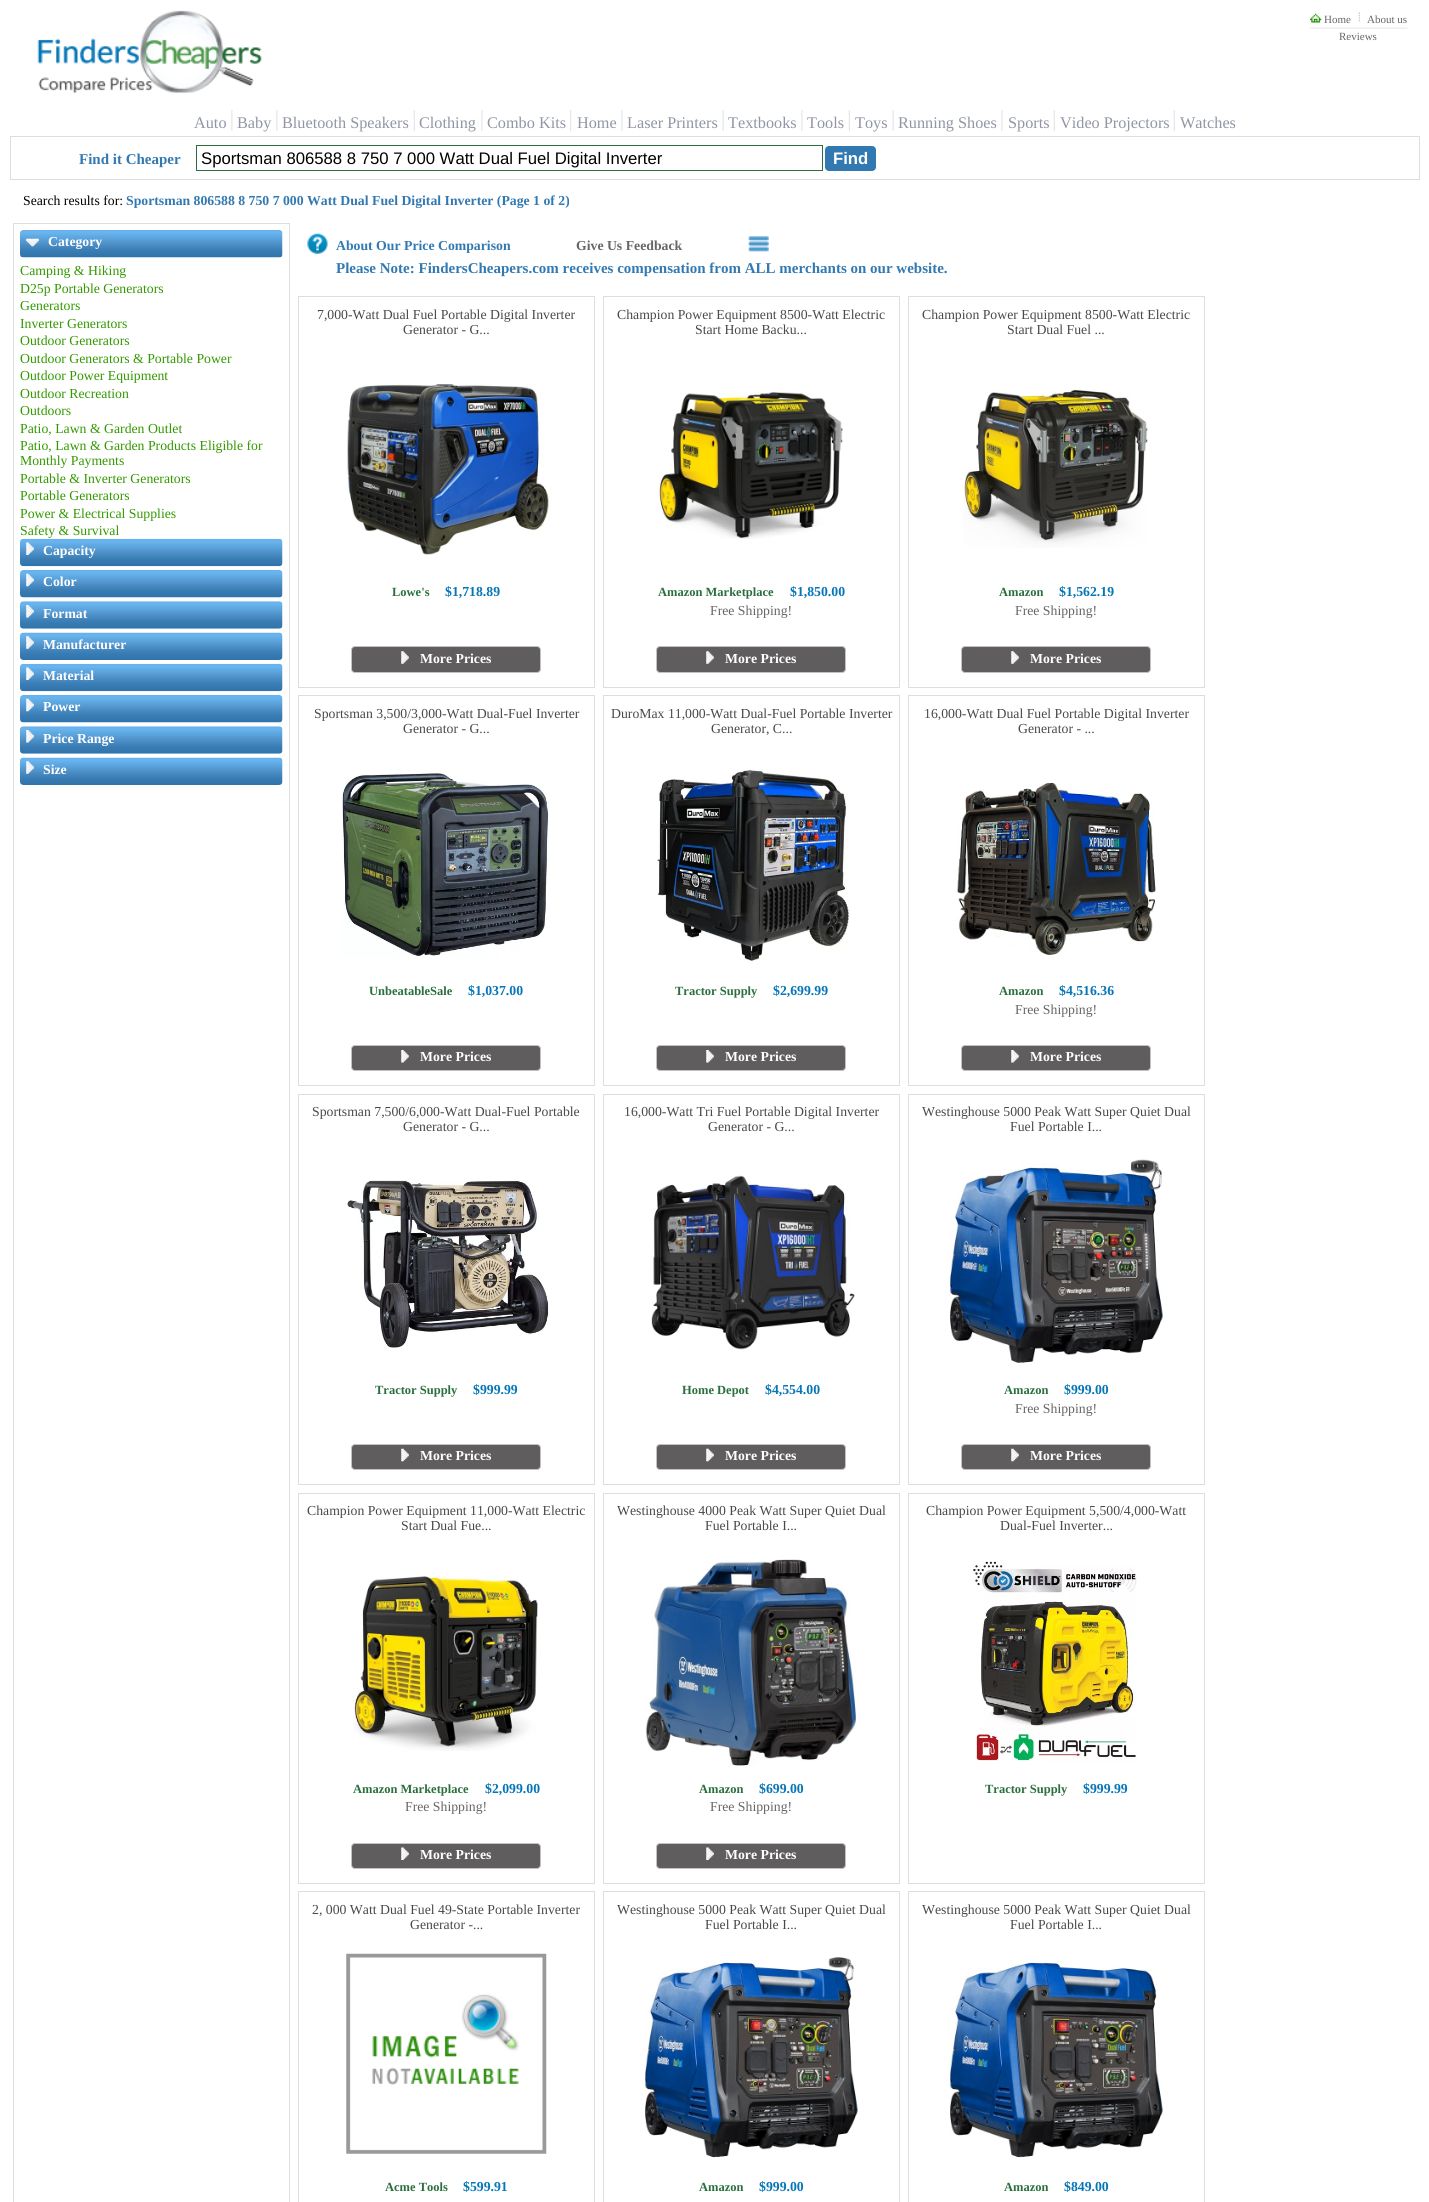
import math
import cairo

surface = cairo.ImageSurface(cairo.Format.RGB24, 1429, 2202)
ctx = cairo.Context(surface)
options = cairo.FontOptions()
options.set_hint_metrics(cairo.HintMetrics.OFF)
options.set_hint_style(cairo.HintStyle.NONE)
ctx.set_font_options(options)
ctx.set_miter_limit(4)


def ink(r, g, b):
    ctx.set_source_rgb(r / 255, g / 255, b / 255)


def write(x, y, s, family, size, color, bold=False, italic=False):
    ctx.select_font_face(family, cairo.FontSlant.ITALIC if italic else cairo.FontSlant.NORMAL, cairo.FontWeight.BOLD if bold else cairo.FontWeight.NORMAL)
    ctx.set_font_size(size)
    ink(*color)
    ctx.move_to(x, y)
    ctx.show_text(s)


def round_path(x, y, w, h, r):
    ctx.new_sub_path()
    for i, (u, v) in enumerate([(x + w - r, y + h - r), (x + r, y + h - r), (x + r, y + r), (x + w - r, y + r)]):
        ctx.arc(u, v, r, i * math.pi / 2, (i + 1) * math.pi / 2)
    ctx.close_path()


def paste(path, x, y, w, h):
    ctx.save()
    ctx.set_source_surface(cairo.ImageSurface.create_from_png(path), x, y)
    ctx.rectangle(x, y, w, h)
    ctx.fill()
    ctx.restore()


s1 = dict(family="Liberation Serif", size=11, color=(102, 102, 102))
s2 = dict(family="Liberation Serif", size=16.25, color=(145, 149, 165))
s3 = dict(family="Liberation Serif", size=15, color=(51, 121, 177), bold=True)
s4 = dict(family="Liberation Sans", size=16.7, color=(0, 0, 0))
s5 = dict(family="Liberation Sans", size=16.7, color=(255, 255, 255), bold=True)
s6 = dict(family="Liberation Serif", size=13.75, color=(0, 0, 0))
s7 = dict(family="Liberation Serif", size=13.75, color=(51, 121, 177), bold=True)
s8 = dict(family="Liberation Serif", size=13.75, color=(255, 255, 255), bold=True)
s9 = dict(family="Liberation Serif", size=13.75, color=(51, 153, 0))
s10 = dict(family="Liberation Serif", size=13.75, color=(102, 102, 102), bold=True)
s11 = dict(family="Liberation Serif", size=13.75, color=(74, 73, 73))
s12 = dict(family="Liberation Serif", size=12.5, color=(42, 111, 60), bold=True)
s13 = dict(family="Liberation Serif", size=13.75, color=(7, 118, 183), bold=True)
s14 = dict(family="Liberation Serif", size=13.75, color=(102, 102, 102))

ink(255, 255, 255)
ctx.paint()
paste("pic1.png", 37, 10, 225, 83)
paste("pic2.png", 1310, 13, 12, 10)
write(1324, 23, "Home", **s1)
paste("pic3.png", 1358, 12, 2, 10)
write(1367, 23, "About us", **s1)
paste("pic4.png", 1310, 27, 98, 2)
write(1339, 40, "Reviews", **s1)
write(194, 128, "Auto", **s2)
paste("pic5.png", 231, 110, 2, 21)
write(237, 128, "Baby", **s2)
paste("pic5.png", 276, 110, 2, 21)
write(282, 128, "Bluetooth Speakers", **s2)
paste("pic6.png", 413, 110, 2, 22)
write(419, 128, "Clothing", **s2)
paste("pic5.png", 481, 110, 2, 21)
write(487, 128, "Combo Kits", **s2)
paste("pic7.png", 570, 110, 2, 22)
write(577, 128, "Home", **s2)
paste("pic5.png", 621, 110, 2, 21)
write(627, 128, "Laser Printers", **s2)
paste("pic8.png", 722, 110, 2, 21)
write(728, 128, "Textbooks", **s2)
paste("pic5.png", 801, 110, 2, 21)
write(807, 128, "Tools", **s2)
paste("pic6.png", 848, 110, 2, 22)
write(855, 128, "Toys", **s2)
paste("pic8.png", 892, 110, 2, 21)
write(898, 128, "Running Shoes", **s2)
paste("pic5.png", 1001, 110, 2, 21)
write(1008, 128, "Sports", **s2)
paste("pic6.png", 1053, 110, 2, 22)
write(1060, 128, "Video Projectors", **s2)
paste("pic6.png", 1173, 110, 2, 22)
write(1180, 128, "Watches", **s2)
ctx.rectangle(10.5, 136.5, 1409, 43)
ink(222, 222, 222)
ctx.set_line_width(1)
ctx.stroke()
write(79, 164, "Find it Cheaper", **s3)
ctx.rectangle(196.5, 145.5, 626, 25)
ink(42, 111, 60)
ctx.stroke()
write(201, 164, "Sportsman 806588 8 750 7 000 Watt Dual Fuel Digital Inverter", **s4)
ink(51, 121, 177)
round_path(825, 146, 51, 25, 4)
ctx.fill()
write(833, 164, "Find", **s5)
write(23, 205, "Search results for:", **s6)
write(126, 205, "Sportsman 806588 8 750 7 000 Watt Dual Fuel Digital Inverter (Page 1 of 2)", **s7)
ctx.rectangle(13.5, 223.5, 276, 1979)
ink(222, 222, 222)
ctx.stroke()
paste("pic9.png", 20, 230, 263, 28)
paste("pic10.png", 26, 238, 13, 9)
write(48, 246, "Category", **s8)
write(20, 275, "Camping & Hiking", **s9)
write(20, 293, "D25p Portable Generators", **s9)
write(20, 310, "Generators", **s9)
write(20, 328, "Inverter Generators", **s9)
write(20, 345, "Outdoor Generators", **s9)
write(20, 363, "Outdoor Generators & Portable Power", **s9)
write(20, 380, "Outdoor Power Equipment", **s9)
write(20, 398, "Outdoor Recreation", **s9)
write(20, 415, "Outdoors", **s9)
write(20, 433, "Patio, Lawn & Garden Outlet", **s9)
write(20, 450, "Patio, Lawn & Garden Products Eligible for", **s9)
write(20, 465, "Monthly Payments", **s9)
write(20, 483, "Portable & Inverter Generators", **s9)
write(20, 500, "Portable Generators", **s9)
write(20, 518, "Power & Electrical Supplies", **s9)
write(20, 535, "Safety & Survival", **s9)
paste("pic11.png", 20, 538, 263, 29)
paste("pic12.png", 26, 542, 8, 13)
write(43, 555, "Capacity", **s8)
paste("pic13.png", 20, 570, 263, 28)
paste("pic14.png", 26, 573, 8, 14)
write(43, 586, "Color", **s8)
paste("pic15.png", 20, 601, 263, 28)
paste("pic16.png", 26, 605, 8, 13)
write(43, 618, "Format", **s8)
paste("pic17.png", 20, 632, 263, 28)
paste("pic18.png", 26, 636, 8, 13)
write(43, 649, "Manufacturer", **s8)
paste("pic11.png", 20, 663, 263, 29)
paste("pic12.png", 26, 667, 8, 13)
write(43, 680, "Material", **s8)
paste("pic13.png", 20, 695, 263, 28)
paste("pic14.png", 26, 698, 8, 14)
write(43, 711, "Power", **s8)
paste("pic15.png", 20, 726, 263, 28)
paste("pic16.png", 26, 730, 8, 13)
write(43, 743, "Price Range", **s8)
paste("pic17.png", 20, 757, 263, 28)
paste("pic18.png", 26, 761, 8, 13)
write(43, 774, "Size", **s8)
paste("pic19.png", 307, 233, 21, 21)
write(336, 250, "About Our Price Comparison", **s7)
write(576, 250, "Give Us Feedback", **s10)
paste("pic20.png", 748, 236, 21, 16)
write(336, 273, "Please Note: FindersCheapers.com receives compensation from ALL merchants on our website.", **s3)
ctx.rectangle(298.5, 296.5, 296, 391)
ink(222, 222, 222)
ctx.stroke()
write(317, 319, "7,000-Watt Dual Fuel Portable Digital Inverter", **s11)
write(403, 334, "Generator - G...", **s11)
paste("pic21.png", 347, 384, 204, 171)
write(392, 596, "Lowe's", **s12)
write(445, 596, "$1,718.89", **s13)
ink(95, 93, 93)
round_path(351.5, 646.5, 189, 26, 3.5)
ctx.fill_preserve()
ink(195, 195, 195)
ctx.stroke()
paste("pic22.png", 401, 651, 8, 13)
write(420, 663, "More Prices", **s8)
ctx.rectangle(603.5, 296.5, 296, 391)
ink(222, 222, 222)
ctx.stroke()
write(617, 319, "Champion Power Equipment 8500-Watt Electric", **s11)
write(695, 334, "Start Home Backu...", **s11)
paste("pic23.png", 658, 392, 185, 147)
write(658, 596, "Amazon Marketplace", **s12)
write(790, 596, "$1,850.00", **s13)
write(710, 615, "Free Shipping!", **s14)
ink(95, 93, 93)
round_path(656.5, 646.5, 189, 26, 3.5)
ctx.fill_preserve()
ink(195, 195, 195)
ctx.stroke()
paste("pic22.png", 706, 651, 8, 13)
write(725, 663, "More Prices", **s8)
ctx.rectangle(908.5, 296.5, 296, 391)
ink(222, 222, 222)
ctx.stroke()
write(922, 319, "Champion Power Equipment 8500-Watt Electric", **s11)
write(1007, 334, "Start Dual Fuel ...", **s11)
paste("pic24.png", 963, 389, 185, 159)
write(999, 596, "Amazon", **s12)
write(1059, 596, "$1,562.19", **s13)
write(1015, 615, "Free Shipping!", **s14)
ink(95, 93, 93)
round_path(961.5, 646.5, 189, 26, 3.5)
ctx.fill_preserve()
ink(195, 195, 195)
ctx.stroke()
paste("pic25.png", 1011, 651, 8, 13)
write(1030, 663, "More Prices", **s8)
ctx.rectangle(298.5, 695.5, 296, 390)
ink(222, 222, 222)
ctx.stroke()
write(314, 718, "Sportsman 3,500/3,000-Watt Dual-Fuel Inverter", **s11)
write(403, 733, "Generator - G...", **s11)
paste("pic26.png", 342, 773, 207, 185)
write(369, 995, "UnbeatableSale", **s12)
write(468, 995, "$1,037.00", **s13)
ink(95, 93, 93)
round_path(351.5, 1045.5, 189, 25, 3.5)
ctx.fill_preserve()
ink(195, 195, 195)
ctx.stroke()
paste("pic27.png", 401, 1050, 8, 13)
write(420, 1061, "More Prices", **s8)
ctx.rectangle(603.5, 695.5, 296, 390)
ink(222, 222, 222)
ctx.stroke()
write(611, 718, "DuroMax 11,000-Watt Dual-Fuel Portable Inverter", **s11)
write(711, 733, "Generator, C...", **s11)
paste("pic28.png", 657, 770, 192, 191)
write(675, 995, "Tractor Supply", **s12)
write(773, 995, "$2,699.99", **s13)
ink(95, 93, 93)
round_path(656.5, 1045.5, 189, 25, 3.5)
ctx.fill_preserve()
ink(195, 195, 195)
ctx.stroke()
paste("pic27.png", 706, 1050, 8, 13)
write(725, 1061, "More Prices", **s8)
ctx.rectangle(908.5, 695.5, 296, 390)
ink(222, 222, 222)
ctx.stroke()
write(924, 718, "16,000-Watt Dual Fuel Portable Digital Inverter", **s11)
write(1018, 733, "Generator - ...", **s11)
paste("pic29.png", 957, 782, 199, 173)
write(999, 995, "Amazon", **s12)
write(1059, 995, "$4,516.36", **s13)
write(1015, 1014, "Free Shipping!", **s14)
ink(95, 93, 93)
round_path(961.5, 1045.5, 189, 25, 3.5)
ctx.fill_preserve()
ink(195, 195, 195)
ctx.stroke()
paste("pic30.png", 1011, 1050, 8, 13)
write(1030, 1061, "More Prices", **s8)
ctx.rectangle(298.5, 1094.5, 296, 390)
ink(222, 222, 222)
ctx.stroke()
write(312, 1116, "Sportsman 7,500/6,000-Watt Dual-Fuel Portable", **s11)
write(403, 1131, "Generator - G...", **s11)
paste("pic31.png", 347, 1180, 202, 168)
write(375, 1394, "Tractor Supply", **s12)
write(473, 1394, "$999.99", **s13)
ink(95, 93, 93)
round_path(351.5, 1444.5, 189, 25, 3.5)
ctx.fill_preserve()
ink(195, 195, 195)
ctx.stroke()
paste("pic32.png", 401, 1448, 8, 14)
write(420, 1460, "More Prices", **s8)
ctx.rectangle(603.5, 1094.5, 296, 390)
ink(222, 222, 222)
ctx.stroke()
write(624, 1116, "16,000-Watt Tri Fuel Portable Digital Inverter", **s11)
write(708, 1131, "Generator - G...", **s11)
paste("pic33.png", 651, 1175, 204, 175)
write(682, 1394, "Home Depot", **s12)
write(765, 1394, "$4,554.00", **s13)
ink(95, 93, 93)
round_path(656.5, 1444.5, 189, 25, 3.5)
ctx.fill_preserve()
ink(195, 195, 195)
ctx.stroke()
paste("pic32.png", 706, 1448, 8, 14)
write(725, 1460, "More Prices", **s8)
ctx.rectangle(908.5, 1094.5, 296, 390)
ink(222, 222, 222)
ctx.stroke()
write(922, 1116, "Westinghouse 5000 Peak Watt Super Quiet Dual", **s11)
write(1010, 1131, "Fuel Portable I...", **s11)
paste("pic34.png", 950, 1159, 213, 204)
write(1004, 1394, "Amazon", **s12)
write(1064, 1394, "$999.00", **s13)
write(1015, 1413, "Free Shipping!", **s14)
ink(95, 93, 93)
round_path(961.5, 1444.5, 189, 25, 3.5)
ctx.fill_preserve()
ink(195, 195, 195)
ctx.stroke()
paste("pic35.png", 1011, 1448, 8, 14)
write(1030, 1460, "More Prices", **s8)
ctx.rectangle(298.5, 1493.5, 296, 390)
ink(222, 222, 222)
ctx.stroke()
write(307, 1515, "Champion Power Equipment 11,000-Watt Electric", **s11)
write(401, 1530, "Start Dual Fue...", **s11)
paste("pic36.png", 353, 1575, 185, 176)
write(353, 1793, "Amazon Marketplace", **s12)
write(485, 1793, "$2,099.00", **s13)
write(405, 1811, "Free Shipping!", **s14)
ink(95, 93, 93)
round_path(351.5, 1843.5, 189, 25, 3.5)
ctx.fill_preserve()
ink(195, 195, 195)
ctx.stroke()
paste("pic37.png", 401, 1847, 8, 13)
write(420, 1859, "More Prices", **s8)
ctx.rectangle(603.5, 1493.5, 296, 390)
ink(222, 222, 222)
ctx.stroke()
write(617, 1515, "Westinghouse 4000 Peak Watt Super Quiet Dual", **s11)
write(705, 1530, "Fuel Portable I...", **s11)
paste("pic38.png", 645, 1559, 211, 207)
write(699, 1793, "Amazon", **s12)
write(759, 1793, "$699.00", **s13)
write(710, 1811, "Free Shipping!", **s14)
ink(95, 93, 93)
round_path(656.5, 1843.5, 189, 25, 3.5)
ctx.fill_preserve()
ink(195, 195, 195)
ctx.stroke()
paste("pic37.png", 706, 1847, 8, 13)
write(725, 1859, "More Prices", **s8)
ctx.rectangle(908.5, 1493.5, 296, 390)
ink(222, 222, 222)
ctx.stroke()
write(926, 1515, "Champion Power Equipment 5,500/4,000-Watt", **s11)
write(1000, 1530, "Dual-Fuel Inverter...", **s11)
paste("pic39.png", 972, 1561, 165, 202)
write(985, 1793, "Tractor Supply", **s12)
write(1083, 1793, "$999.99", **s13)
ctx.rectangle(298.5, 1891.5, 296, 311)
ink(222, 222, 222)
ctx.stroke()
write(312, 1914, "2, 000 Watt Dual Fuel 49-State Portable Inverter", **s11)
write(410, 1929, "Generator -...", **s11)
paste("pic40.png", 346, 1953, 201, 201)
write(385, 2191, "Acme Tools", **s12)
write(463, 2191, "$599.91", **s13)
ctx.rectangle(603.5, 1891.5, 296, 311)
ink(222, 222, 222)
ctx.stroke()
write(617, 1914, "Westinghouse 5000 Peak Watt Super Quiet Dual", **s11)
write(705, 1929, "Fuel Portable I...", **s11)
paste("pic41.png", 645, 1957, 213, 201)
write(699, 2191, "Amazon", **s12)
write(759, 2191, "$999.00", **s13)
ctx.rectangle(908.5, 1891.5, 296, 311)
ink(222, 222, 222)
ctx.stroke()
write(922, 1914, "Westinghouse 5000 Peak Watt Super Quiet Dual", **s11)
write(1010, 1929, "Fuel Portable I...", **s11)
paste("pic42.png", 950, 1960, 213, 198)
write(1004, 2191, "Amazon", **s12)
write(1064, 2191, "$849.00", **s13)
surface.write_to_png("screenshot.png")
